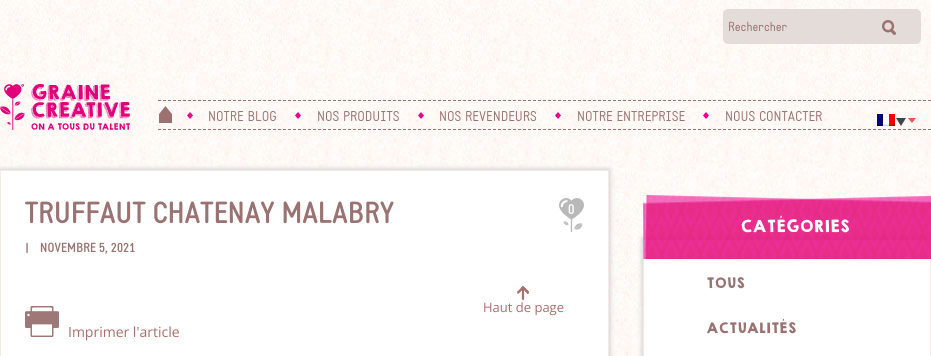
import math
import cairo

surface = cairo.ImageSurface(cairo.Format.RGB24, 931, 356)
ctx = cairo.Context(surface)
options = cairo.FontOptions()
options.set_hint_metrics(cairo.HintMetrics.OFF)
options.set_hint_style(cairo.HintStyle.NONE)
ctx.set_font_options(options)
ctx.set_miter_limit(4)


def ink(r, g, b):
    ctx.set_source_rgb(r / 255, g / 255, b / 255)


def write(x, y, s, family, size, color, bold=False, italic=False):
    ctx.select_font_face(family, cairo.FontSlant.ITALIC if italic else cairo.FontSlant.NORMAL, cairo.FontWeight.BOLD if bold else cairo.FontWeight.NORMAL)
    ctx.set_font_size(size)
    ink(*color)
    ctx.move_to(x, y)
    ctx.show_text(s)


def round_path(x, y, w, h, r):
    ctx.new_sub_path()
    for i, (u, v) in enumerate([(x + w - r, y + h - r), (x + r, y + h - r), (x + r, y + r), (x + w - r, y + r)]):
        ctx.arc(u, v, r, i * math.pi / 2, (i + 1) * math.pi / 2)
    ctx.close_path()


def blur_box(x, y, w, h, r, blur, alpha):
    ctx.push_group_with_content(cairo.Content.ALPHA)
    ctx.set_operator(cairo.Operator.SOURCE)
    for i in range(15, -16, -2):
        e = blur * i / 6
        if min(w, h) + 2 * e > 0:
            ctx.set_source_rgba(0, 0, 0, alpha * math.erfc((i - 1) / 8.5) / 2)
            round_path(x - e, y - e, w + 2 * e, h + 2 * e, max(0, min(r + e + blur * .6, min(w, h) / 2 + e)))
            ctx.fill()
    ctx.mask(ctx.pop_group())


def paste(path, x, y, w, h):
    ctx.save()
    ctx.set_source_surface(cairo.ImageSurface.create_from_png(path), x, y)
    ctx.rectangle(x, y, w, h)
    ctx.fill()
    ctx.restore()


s1 = dict(family="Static", size=13, color=(154, 114, 114))
s2 = dict(family="Static", size=14, color=(154, 114, 114))
s3 = dict(family="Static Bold", size=30, color=(154, 114, 114), bold=True)
s4 = dict(family="Static Bold", size=13, color=(154, 114, 114), bold=True)
s5 = dict(family="Static Bold", size=14, color=(255, 255, 255), bold=True)
s6 = dict(family="Open Sans", size=13, color=(174, 108, 108))
s7 = dict(family="Open Sans", size=14, color=(174, 108, 108))
s8 = dict(family="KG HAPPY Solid", size=15, color=(255, 255, 255))
s9 = dict(family="KG HAPPY Solid", size=13, color=(154, 114, 114))

ink(255, 255, 255)
ctx.paint()
paste("pic1.png", 0, 0, 931, 356)
ink(227, 220, 216)
round_path(723, 9, 198, 35, 5)
ctx.fill()
write(728, 31, "Rechercher", **s1)
paste("pic2.png", 882, 20, 14, 15)
paste("pic3.png", 0, 84, 130, 46)
ctx.new_path()
ctx.move_to(158, 100.5)
ctx.line_to(931, 100.5)
ctx.set_line_width(1)
ctx.set_dash([3, 2])
ctx.stroke()
ctx.new_path()
ctx.move_to(158, 129.5)
ctx.line_to(931, 129.5)
ctx.stroke()
paste("pic4.png", 159, 106, 13, 17)
paste("pic5.png", 187, 112, 6, 7)
write(208, 121, "NOTRE BLOG", **s2)
paste("pic6.png", 295, 112, 6, 7)
write(317, 121, "NOS PRODUITS", **s2)
paste("pic7.png", 418, 112, 6, 7)
write(439, 121, "NOS REVENDEURS", **s2)
paste("pic8.png", 555, 112, 6, 7)
write(577, 121, "NOTRE ENTREPRISE", **s2)
paste("pic9.png", 703, 112, 6, 7)
write(725, 121, "NOUS CONTACTER", **s2)
paste("pic10.png", 908, 118, 8, 5)
paste("pic11.png", 877, 114, 18, 12)
ink(68, 68, 68)
ctx.new_path()
ctx.move_to(896, 118)
ctx.line_to(906, 118)
ctx.line_to(901, 126)
ctx.close_path()
ctx.fill()
ink(207, 207, 207)
blur_box(-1, 169, 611, 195, 0, 2.5, 1)
ink(255, 255, 255)
ctx.rectangle(0.5, 170.5, 608, 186)
ctx.fill_preserve()
ink(244, 233, 228)
ctx.set_dash([])
ctx.stroke()
write(25, 223, "TRUFFAUT CHATENAY MALABRY", **s3)
write(25, 252, "|", **s4)
write(40, 252, "NOVEMBRE 5, 2021", **s4)
paste("pic12.png", 559, 198, 25, 34)
write(568, 214, "0", **s5)
paste("pic13.png", 517, 286, 12, 14)
write(483, 312, "Haut de page", **s6)
paste("pic14.png", 25, 306, 34, 31)
write(68, 337, "Imprimer l'article", **s7)
ink(207, 207, 207)
blur_box(642, 238, 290, 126, 0, 2.5, 1)
ink(255, 255, 255)
ctx.rectangle(643.5, 239.5, 287, 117)
ctx.fill_preserve()
ink(244, 233, 228)
ctx.stroke()
paste("pic15.png", 643, 195, 288, 64)
write(740, 232, "CATÉGORIES", **s8)
write(706, 288, "TOUS", **s9)
write(706, 333, "ACTUALITÉS", **s9)
surface.write_to_png("screenshot.png")
